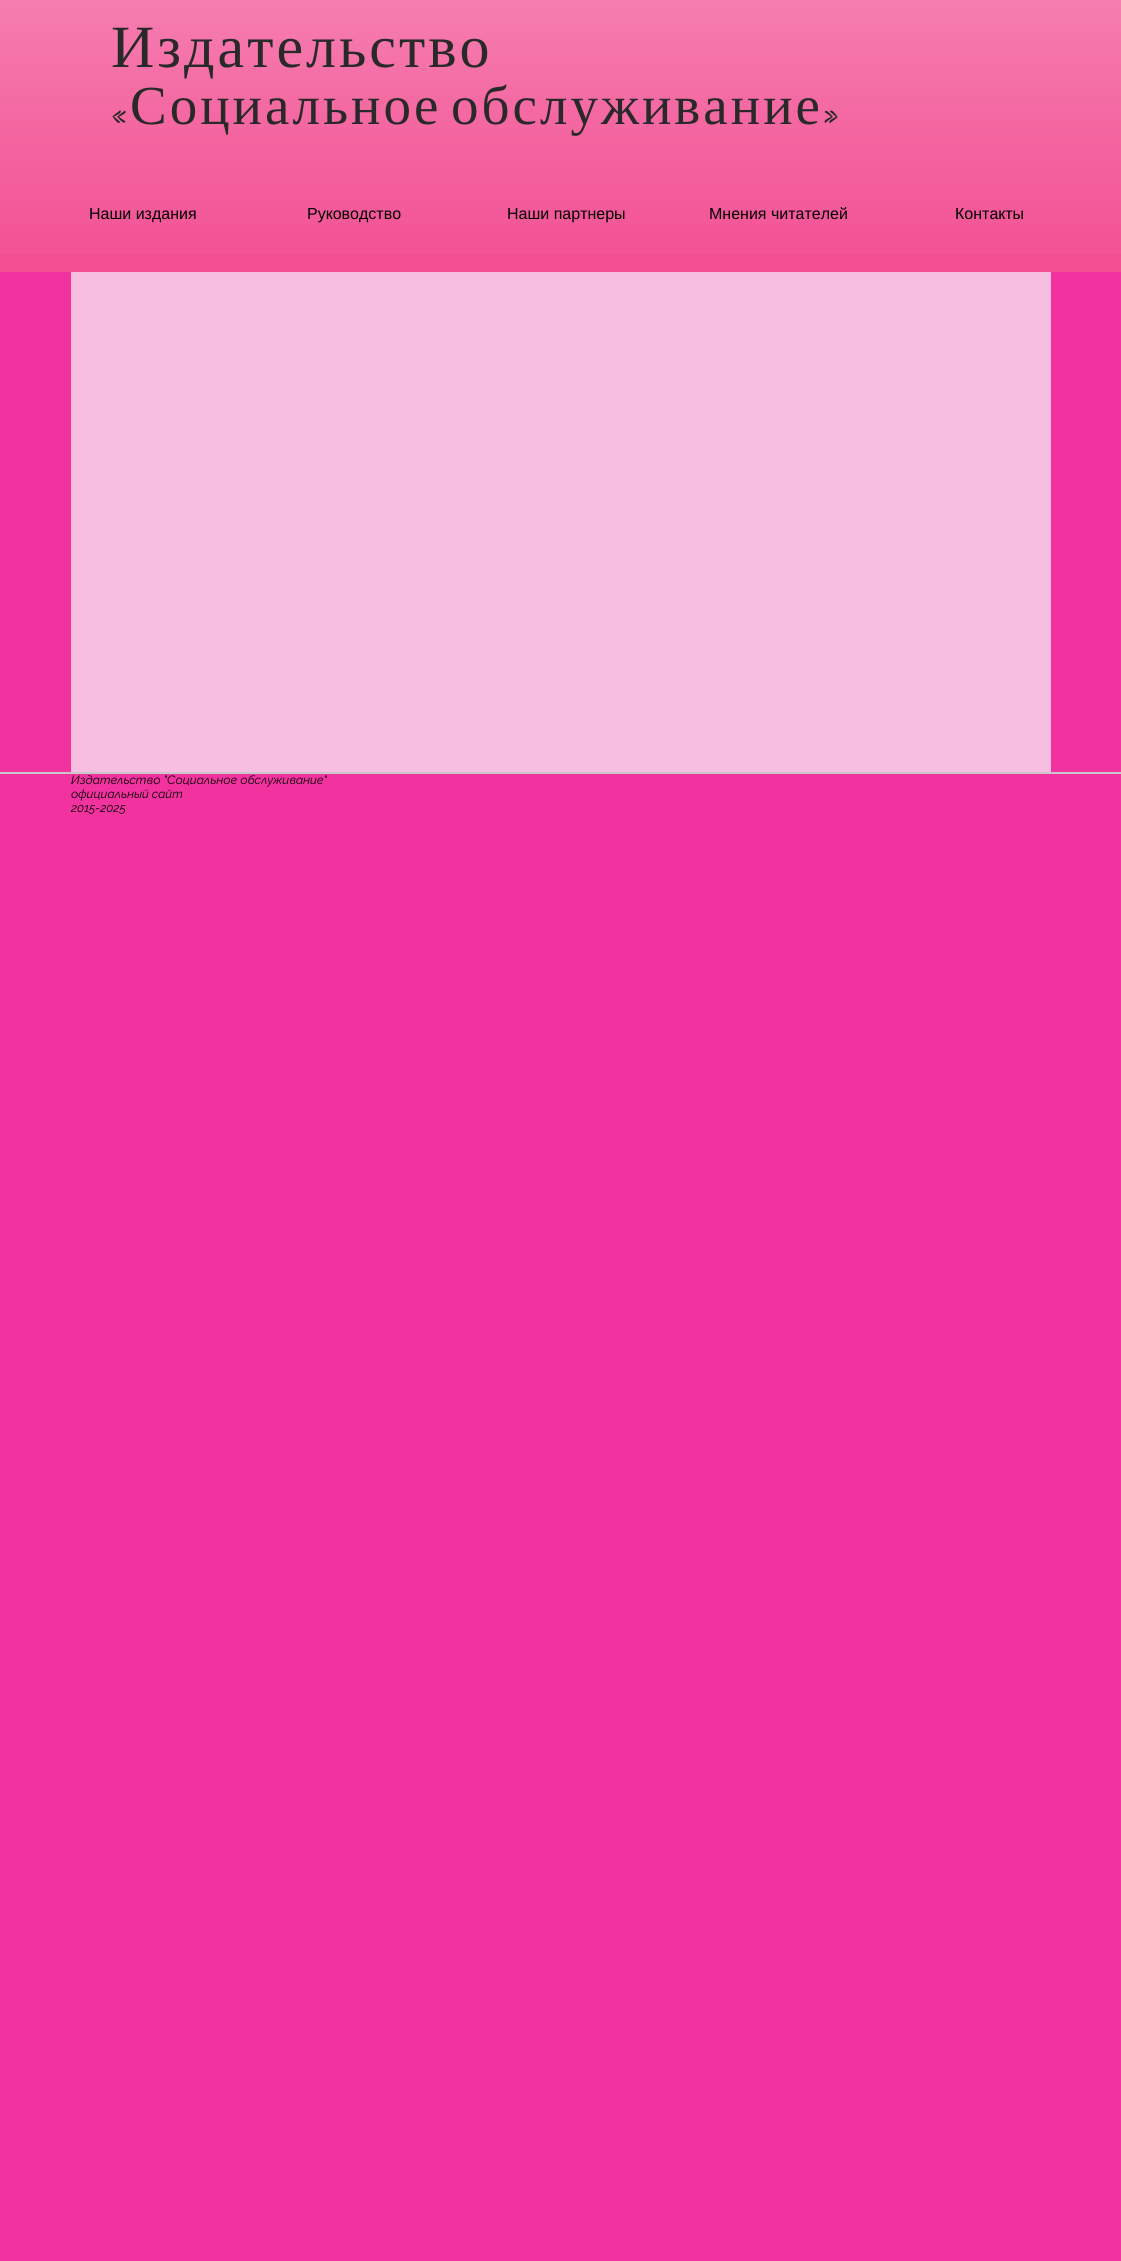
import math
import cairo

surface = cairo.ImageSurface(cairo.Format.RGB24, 1121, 2261)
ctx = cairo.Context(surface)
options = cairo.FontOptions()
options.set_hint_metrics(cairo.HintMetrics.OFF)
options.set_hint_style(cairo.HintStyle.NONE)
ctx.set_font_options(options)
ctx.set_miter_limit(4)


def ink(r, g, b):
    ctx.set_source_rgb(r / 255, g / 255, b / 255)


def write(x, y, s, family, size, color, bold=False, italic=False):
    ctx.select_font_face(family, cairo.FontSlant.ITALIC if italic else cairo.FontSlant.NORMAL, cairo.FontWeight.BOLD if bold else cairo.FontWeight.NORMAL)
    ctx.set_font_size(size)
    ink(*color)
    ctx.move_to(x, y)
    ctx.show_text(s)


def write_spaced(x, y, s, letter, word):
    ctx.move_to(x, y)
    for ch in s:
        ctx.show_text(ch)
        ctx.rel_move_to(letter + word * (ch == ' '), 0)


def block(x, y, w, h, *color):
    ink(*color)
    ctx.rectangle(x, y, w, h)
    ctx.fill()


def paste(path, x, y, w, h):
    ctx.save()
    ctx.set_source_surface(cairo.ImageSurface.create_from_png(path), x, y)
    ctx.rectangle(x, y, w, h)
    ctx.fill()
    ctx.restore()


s1 = dict(family="Liberation Sans", size=16, color=(0, 0, 0))
s2 = dict(family="Raleway", size=12, color=(0, 0, 0), italic=True)

ink(242, 51, 159)
ctx.paint()
block(0, 0, 1121, 272, 242, 80, 147)
paste("pic1.png", 0, 0, 1121, 254)
ctx.select_font_face("Liberation Serif")
ctx.set_font_size(60)
ink(41, 41, 41)
write_spaced(111, 67, "Издательство", 3, 0)
ctx.select_font_face("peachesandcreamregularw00")
ctx.set_font_size(55)
write_spaced(111, 124, "«", 3, 0)
ctx.select_font_face("Liberation Serif")
write_spaced(130, 124, "Социальное обслуживание", 3, -7)
ctx.select_font_face("peachesandcreamregularw00")
write_spaced(823, 124, "»", 3, 0)
write(89, 219, "Наши издания", **s1)
write(307, 219, "Руководство", **s1)
write(507, 219, "Наши партнеры", **s1)
write(709, 219, "Мнения читателей", **s1)
write(955, 219, "Контакты", **s1)
block(71, 272, 980, 500, 247, 190, 223)
block(0, 772, 1121, 2, 200, 200, 200)
write(71, 784, "Издательство \"Социальное обслуживание\"", **s2)
write(71, 798, "официальный сайт", **s2)
write(71, 812, "2015-2025", **s2)
surface.write_to_png("screenshot.png")
